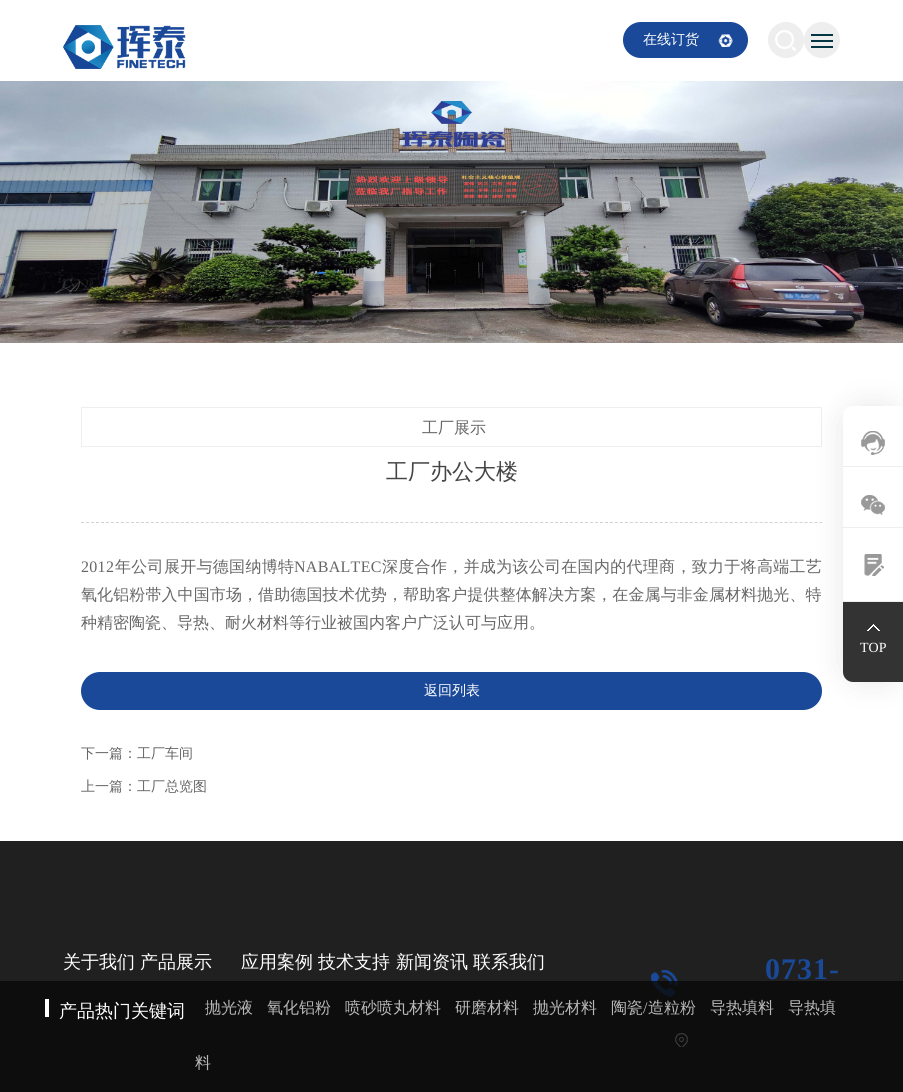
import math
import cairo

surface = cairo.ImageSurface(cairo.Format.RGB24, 903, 1092)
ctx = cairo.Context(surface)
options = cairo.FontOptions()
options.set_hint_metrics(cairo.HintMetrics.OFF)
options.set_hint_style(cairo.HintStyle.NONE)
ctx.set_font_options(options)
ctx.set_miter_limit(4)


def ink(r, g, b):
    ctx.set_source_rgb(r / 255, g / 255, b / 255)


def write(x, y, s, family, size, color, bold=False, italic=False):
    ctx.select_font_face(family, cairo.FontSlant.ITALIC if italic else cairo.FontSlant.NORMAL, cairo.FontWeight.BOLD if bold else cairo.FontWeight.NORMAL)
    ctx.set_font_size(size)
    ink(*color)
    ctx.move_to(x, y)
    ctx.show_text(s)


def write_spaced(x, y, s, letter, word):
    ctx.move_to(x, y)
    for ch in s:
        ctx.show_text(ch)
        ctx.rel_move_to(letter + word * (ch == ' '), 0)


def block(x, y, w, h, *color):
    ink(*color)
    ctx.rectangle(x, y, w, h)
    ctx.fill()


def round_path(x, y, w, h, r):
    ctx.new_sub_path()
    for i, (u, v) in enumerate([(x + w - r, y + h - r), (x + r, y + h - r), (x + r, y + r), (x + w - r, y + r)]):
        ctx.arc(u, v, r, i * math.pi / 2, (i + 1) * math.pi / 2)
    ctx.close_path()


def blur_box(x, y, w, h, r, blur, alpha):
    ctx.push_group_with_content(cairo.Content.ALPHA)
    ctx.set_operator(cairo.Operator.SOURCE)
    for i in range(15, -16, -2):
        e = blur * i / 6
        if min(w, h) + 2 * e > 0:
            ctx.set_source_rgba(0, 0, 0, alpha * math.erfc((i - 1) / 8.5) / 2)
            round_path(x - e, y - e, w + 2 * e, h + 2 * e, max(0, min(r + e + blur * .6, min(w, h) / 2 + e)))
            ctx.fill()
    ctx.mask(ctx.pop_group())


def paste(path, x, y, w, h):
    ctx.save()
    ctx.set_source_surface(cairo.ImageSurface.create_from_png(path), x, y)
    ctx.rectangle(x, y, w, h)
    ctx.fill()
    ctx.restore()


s1 = dict(family="WenQuanYi Zen Hei Medium", size=14, color=(255, 255, 255))
s2 = dict(family="WenQuanYi Zen Hei Medium", size=16, color=(102, 102, 102))
s3 = dict(family="WenQuanYi Zen Hei Medium", size=22, color=(68, 68, 68))
s4 = dict(family="WenQuanYi Zen Hei Medium", size=14, color=(102, 102, 102))
s5 = dict(family="Liberation Serif", size=14, color=(255, 255, 255))
s6 = dict(family="WenQuanYi Zen Hei Medium", size=18, color=(255, 255, 255))
s7 = dict(family="WenQuanYi Zen Hei Medium", size=16, color=(184, 184, 184))
s8 = dict(family="Liberation Serif", size=16, color=(184, 184, 184))

ink(255, 255, 255)
ctx.paint()
paste("pic1.png", 63, 25, 123, 44)
ink(25, 73, 152)
round_path(623, 22, 125, 36, 18)
ctx.fill()
paste("pic2.png", 718, 34, 15, 13)
write(643, 44, "在线订货", **s1)
ink(238, 238, 238)
ctx.new_path()
ctx.arc(786, 40, 18, 0, 2 * math.pi)
ctx.fill()
paste("pic3.png", 775, 30, 21, 21)
ctx.arc(822, 40, 18, 0, 2 * math.pi)
ctx.fill()
block(811, 40, 22, 2, 3, 53, 67)
block(811, 34, 22, 2, 3, 53, 67)
block(811, 46, 22, 2, 3, 53, 67)
paste("pic4.png", 0, 81, 903, 262)
ctx.rectangle(81.5, 407.5, 740, 39)
ink(238, 238, 238)
ctx.set_line_width(1)
ctx.stroke()
write(422, 433, "工厂展示", **s2)
ctx.new_path()
ctx.move_to(81, 522.5)
ctx.line_to(822, 522.5)
ink(210, 210, 210)
ctx.set_dash([3, 1.99])
ctx.stroke()
write(386, 479, "工厂办公大楼", **s3)
ctx.select_font_face("Liberation Serif")
ctx.set_font_size(16)
ink(102, 102, 102)
write_spaced(81, 572, "2012", 0.3, 0)
ctx.select_font_face("WenQuanYi Zen Hei Medium")
write_spaced(115, 572, "年公司展开与德国纳博特", 0.3, 0)
ctx.select_font_face("Liberation Serif")
write_spaced(294, 572, "NABALTEC", 0.3, 0)
ctx.select_font_face("WenQuanYi Zen Hei Medium")
write_spaced(382, 572, "深度合作，并成为该公司在国内的代理商，致力于将高端工艺", 0.3, 0)
write_spaced(81, 600, "氧化铝粉带入中国市场，借助德国技术优势，帮助客户提供整体解决方案，在金属与非金属材料抛光、特", 0.1, 0)
write(81, 628, "种精密陶瓷、导热、耐火材料等行业被国内客户广泛认可与应用。", **s2)
ink(25, 73, 152)
round_path(81, 672, 741, 38, 19)
ctx.fill()
write(424, 695, "返回列表", **s1)
write(81, 758, "下一篇：工厂车间", **s4)
write(81, 791, "上一篇：工厂总览图", **s4)
ctx.save()
ctx.set_fill_rule(cairo.FillRule.EVEN_ODD)
ctx.new_path()
ctx.move_to(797, 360)
ctx.line_to(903, 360)
ctx.line_to(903, 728)
ctx.line_to(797, 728)
ctx.close_path()
ctx.move_to(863, 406)
ctx.line_to(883, 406)
ctx.curve_to(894, 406, 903, 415, 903, 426)
ctx.line_to(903, 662)
ctx.curve_to(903, 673, 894, 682, 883, 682)
ctx.line_to(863, 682)
ctx.curve_to(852, 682, 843, 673, 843, 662)
ctx.line_to(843, 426)
ctx.curve_to(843, 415, 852, 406, 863, 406)
ctx.close_path()
ctx.clip()
ink(0, 0, 0)
blur_box(843, 406, 60, 276, 20, 15, 0.1)
ctx.restore()
block(843, 466, 60, 1, 238, 238, 238)
ink(255, 255, 255)
ctx.new_path()
ctx.move_to(853, 406)
ctx.line_to(903, 406)
ctx.line_to(903, 466)
ctx.line_to(843, 466)
ctx.line_to(843, 416)
ctx.curve_to(843, 410.5, 847.5, 406, 853, 406)
ctx.close_path()
ctx.fill()
paste("pic5.png", 861, 431, 24, 24)
block(843, 527, 60, 1, 238, 238, 238)
paste("pic6.png", 861, 495, 24, 20)
block(843, 601, 60, 1, 238, 238, 238)
paste("pic7.png", 864, 554, 20, 22)
ink(51, 51, 51)
ctx.new_path()
ctx.move_to(843, 602)
ctx.line_to(903, 602)
ctx.line_to(903, 682)
ctx.line_to(853, 682)
ctx.curve_to(847.5, 682, 843, 677.5, 843, 672)
ctx.close_path()
ctx.fill()
paste("pic8.png", 867, 624, 13, 7)
write(860, 652, "TOP", **s5)
block(0, 841, 903, 251, 32, 32, 32)
write(63, 968, "关于我们", **s6)
write(140, 968, "产品展示", **s6)
write(241, 968, "应用案例", **s6)
write(318, 968, "技术支持", **s6)
write(396, 968, "新闻资讯", **s6)
write(473, 968, "联系我们", **s6)
paste("pic9.png", 651, 970, 27, 27)
ctx.select_font_face("Liberation Serif", cairo.FontSlant.NORMAL, cairo.FontWeight.BOLD)
ctx.set_font_size(30)
ink(25, 73, 152)
write_spaced(765, 979, "0731-", 1, 0)
paste("pic10.png", 675, 1033, 13, 14)
ctx.set_source_rgba(0.039, 0.039, 0.039, 0.8)
ctx.rectangle(0, 981, 903, 111)
ctx.fill()
block(45, 999, 4, 18, 255, 255, 255)
write(59, 1017, "产品热门关键词", **s6)
write(205, 1013, "抛光液", **s7)
write(267, 1013, "氧化铝粉", **s7)
write(345, 1013, "喷砂喷丸材料", **s7)
write(455, 1013, "研磨材料", **s7)
write(533, 1013, "抛光材料", **s7)
write(611, 1013, "陶瓷", **s7)
write(643, 1013, "/", **s8)
write(648, 1013, "造粒粉", **s7)
write(710, 1013, "导热填料", **s7)
write(788, 1013, "导热填", **s7)
write(195, 1068, "料", **s7)
surface.write_to_png("screenshot.png")
